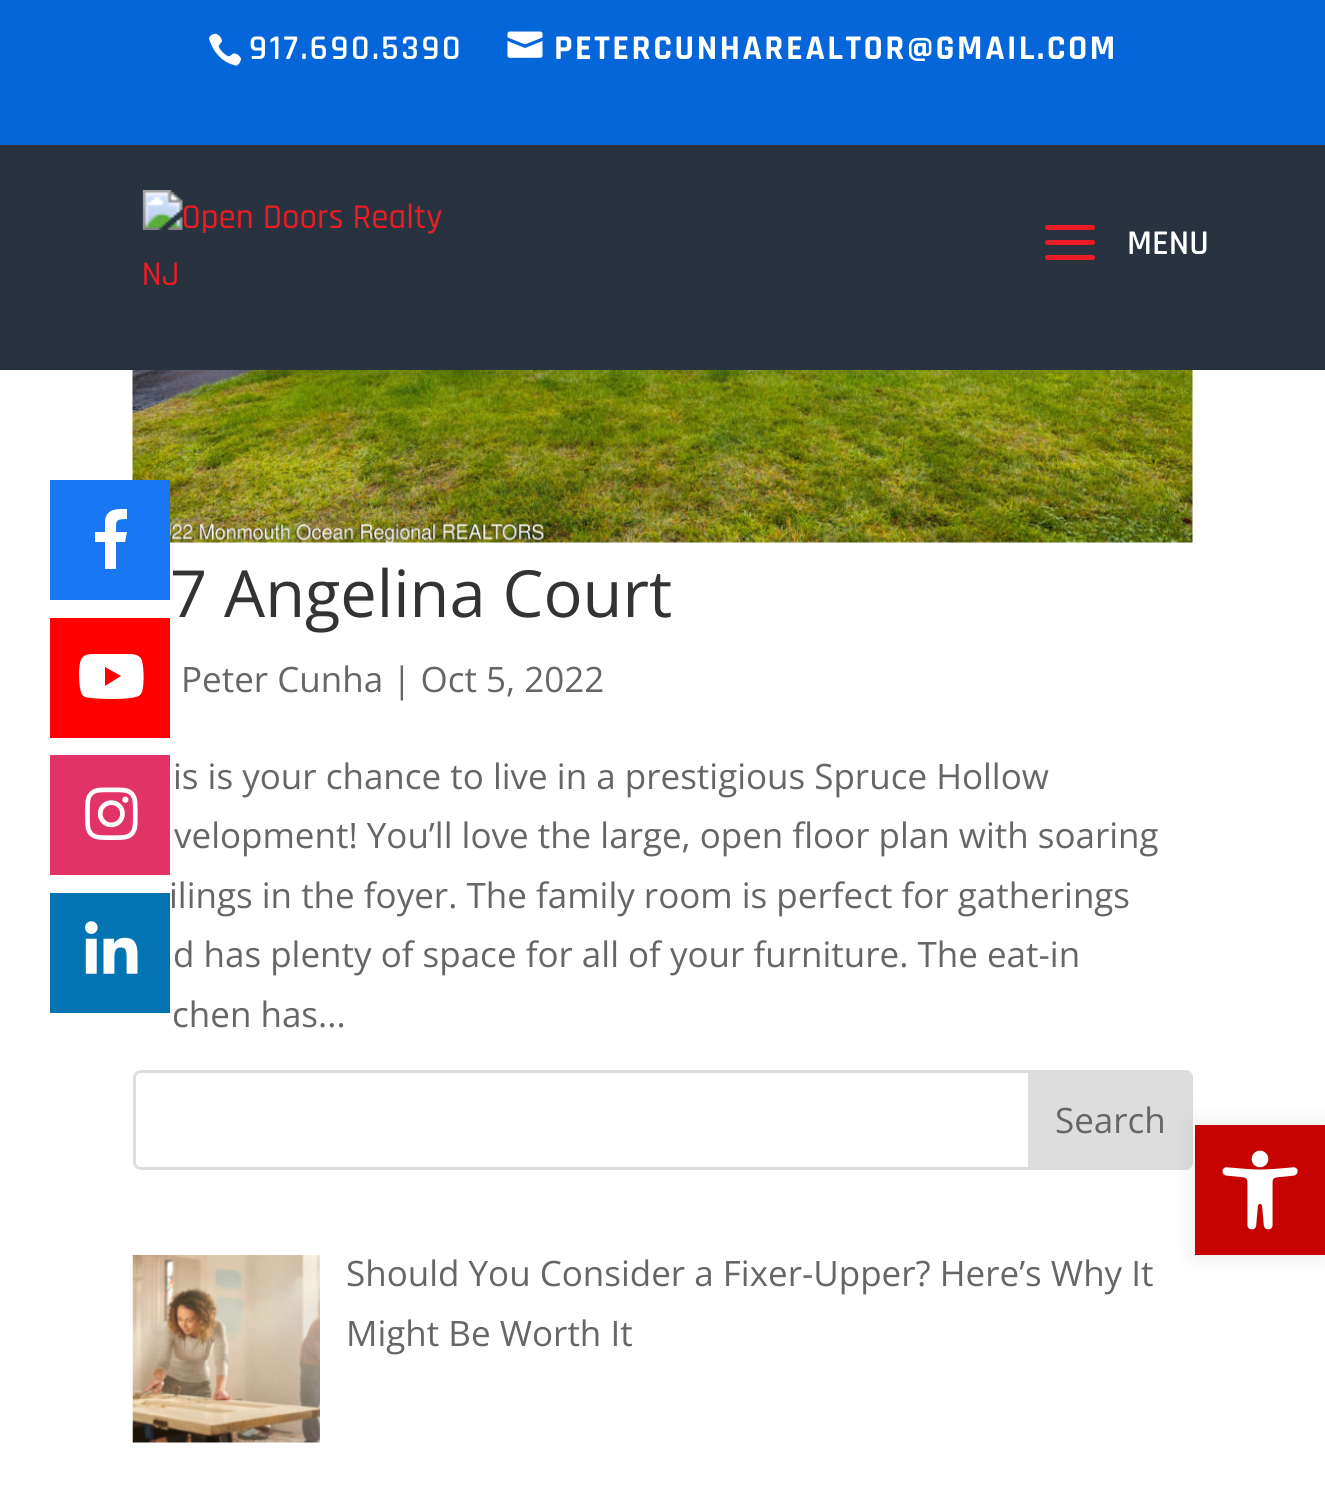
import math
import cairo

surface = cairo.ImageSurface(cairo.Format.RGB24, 1325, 1486)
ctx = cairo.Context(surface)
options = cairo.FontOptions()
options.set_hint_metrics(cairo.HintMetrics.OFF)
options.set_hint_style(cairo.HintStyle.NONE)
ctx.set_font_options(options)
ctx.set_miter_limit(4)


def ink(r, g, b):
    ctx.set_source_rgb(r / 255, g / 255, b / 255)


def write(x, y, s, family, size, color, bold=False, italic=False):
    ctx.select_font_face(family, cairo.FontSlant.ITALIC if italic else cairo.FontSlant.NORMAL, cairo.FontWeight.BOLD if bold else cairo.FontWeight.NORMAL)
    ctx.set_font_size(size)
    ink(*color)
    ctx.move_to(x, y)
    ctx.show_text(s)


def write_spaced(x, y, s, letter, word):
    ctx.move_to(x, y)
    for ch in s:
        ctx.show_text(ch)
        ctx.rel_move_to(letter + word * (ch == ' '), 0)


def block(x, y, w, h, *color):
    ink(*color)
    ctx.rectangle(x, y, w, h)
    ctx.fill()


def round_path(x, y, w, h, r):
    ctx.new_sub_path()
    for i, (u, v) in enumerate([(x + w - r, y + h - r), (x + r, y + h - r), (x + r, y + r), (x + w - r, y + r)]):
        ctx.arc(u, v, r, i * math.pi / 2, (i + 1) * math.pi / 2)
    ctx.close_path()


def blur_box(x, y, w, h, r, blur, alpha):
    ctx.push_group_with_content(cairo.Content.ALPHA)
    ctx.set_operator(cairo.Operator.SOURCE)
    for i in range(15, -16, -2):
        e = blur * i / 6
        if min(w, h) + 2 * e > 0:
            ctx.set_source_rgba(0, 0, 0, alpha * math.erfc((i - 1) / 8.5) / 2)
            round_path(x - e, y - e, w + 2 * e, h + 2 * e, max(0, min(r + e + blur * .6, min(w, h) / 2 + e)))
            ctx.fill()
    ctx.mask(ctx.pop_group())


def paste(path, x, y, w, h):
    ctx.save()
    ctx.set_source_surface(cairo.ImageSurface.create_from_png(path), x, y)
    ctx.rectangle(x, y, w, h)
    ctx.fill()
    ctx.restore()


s1 = dict(family="Rajdhani SemiBold", size=35, color=(255, 255, 255))
s2 = dict(family="Open Sans", size=65, color=(51, 51, 51))
s3 = dict(family="Open Sans", size=35, color=(102, 102, 102))

ink(255, 255, 255)
ctx.paint()
paste("pic7.png", 132, 370, 1061, 173)
block(50, 480, 120, 120, 25, 119, 243)
ink(255, 255, 255)
ctx.new_path()
ctx.move_to(125, 542)
ctx.line_to(116, 542)
ctx.line_to(116, 569)
ctx.line_to(105, 569)
ctx.line_to(105, 542)
ctx.line_to(95, 542)
ctx.line_to(95, 532)
ctx.line_to(105, 532)
ctx.line_to(105, 520)
ctx.curve_to(107, 508, 118, 509, 127, 509)
ctx.line_to(127, 519)
ctx.curve_to(115, 519, 116, 521, 116, 532)
ctx.line_to(127, 532)
ctx.close_path()
ctx.fill()
block(50, 618, 120, 120, 255, 0, 0)
ink(255, 255, 255)
ctx.new_path()
ctx.move_to(142, 661)
ctx.curve_to(144, 668, 145, 691, 140, 695)
ctx.curve_to(134, 701, 90, 699, 85, 697)
ctx.curve_to(83, 696, 81, 694, 81, 692)
ctx.curve_to(79, 686, 79, 678, 79, 671)
ctx.curve_to(80, 661, 80, 655, 91, 654)
ctx.line_to(105, 654)
ctx.line_to(124, 654)
ctx.curve_to(130, 654, 140, 653, 142, 661)
ctx.close_path()
ctx.move_to(105, 686)
ctx.line_to(121, 676)
ctx.line_to(105, 667)
ctx.close_path()
ctx.fill()
block(50, 755, 120, 120, 226, 51, 103)
paste("pic1.png", 85, 787, 53, 53)
block(50, 893, 120, 120, 2, 116, 179)
paste("pic2.png", 85, 921, 53, 53)
block(0, 0, 1325, 145, 4, 102, 217)
paste("pic3.png", 209, 33, 32, 33)
ctx.select_font_face("Rajdhani SemiBold")
ctx.set_font_size(35)
ink(255, 255, 255)
write_spaced(249, 59, "917.690.5390", 2.5, 0)
paste("pic4.png", 507, 31, 36, 27)
ctx.select_font_face("Rajdhani", cairo.FontSlant.NORMAL, cairo.FontWeight.BOLD)
write_spaced(554, 59, "PETERCUNHAREALTOR@GMAIL.COM", 2.5, 0)
block(0, 145, 1325, 225, 41, 51, 63)
paste("pic5.png", 142, 190, 300, 95)
paste("pic6.png", 1045, 225, 50, 35)
write(1127, 254, "MENU", **s1)
write(170, 617, "7 Angelina Court", **s2)
write(181, 692, "Peter Cunha | Oct 5, 2022", **s3)
write(173, 789, "is is your chance to live in a prestigious Spruce Hollow", **s3)
write(174, 848, "velopment! You’ll love the large, open floor plan with soaring", **s3)
write(169, 908, "ilings in the foyer. The family room is perfect for gatherings", **s3)
write(173, 967, "d has plenty of space for all of your furniture. The eat-in", **s3)
write(172, 1027, "chen has...", **s3)
round_path(134.5, 1071.5, 1057, 97, 6.5)
ink(221, 221, 221)
ctx.set_line_width(3)
ctx.stroke()
ctx.new_path()
ctx.move_to(1029.5, 1071.5)
ctx.line_to(1185, 1071.5)
ctx.curve_to(1188.5, 1071.5, 1191.5, 1074.5, 1191.5, 1078)
ctx.line_to(1191.5, 1162)
ctx.curve_to(1191.5, 1165.5, 1188.5, 1168.5, 1185, 1168.5)
ctx.line_to(1029.5, 1168.5)
ctx.close_path()
ctx.fill_preserve()
ctx.stroke()
write(1055, 1133, "Search", **s3)
paste("pic8.png", 132, 1255, 188, 188)
write(346, 1286, "Should You Consider a Fixer-Upper? Here’s Why It", **s3)
write(346, 1346, "Might Be Worth It", **s3)
ink(0, 0, 0)
blur_box(1195, 1125, 130, 130, 0, 12.5, 0.1)
block(1195, 1125, 130, 130, 198, 2, 2)
paste("pic9.png", 1222, 1150, 76, 80)
surface.write_to_png("screenshot.png")
